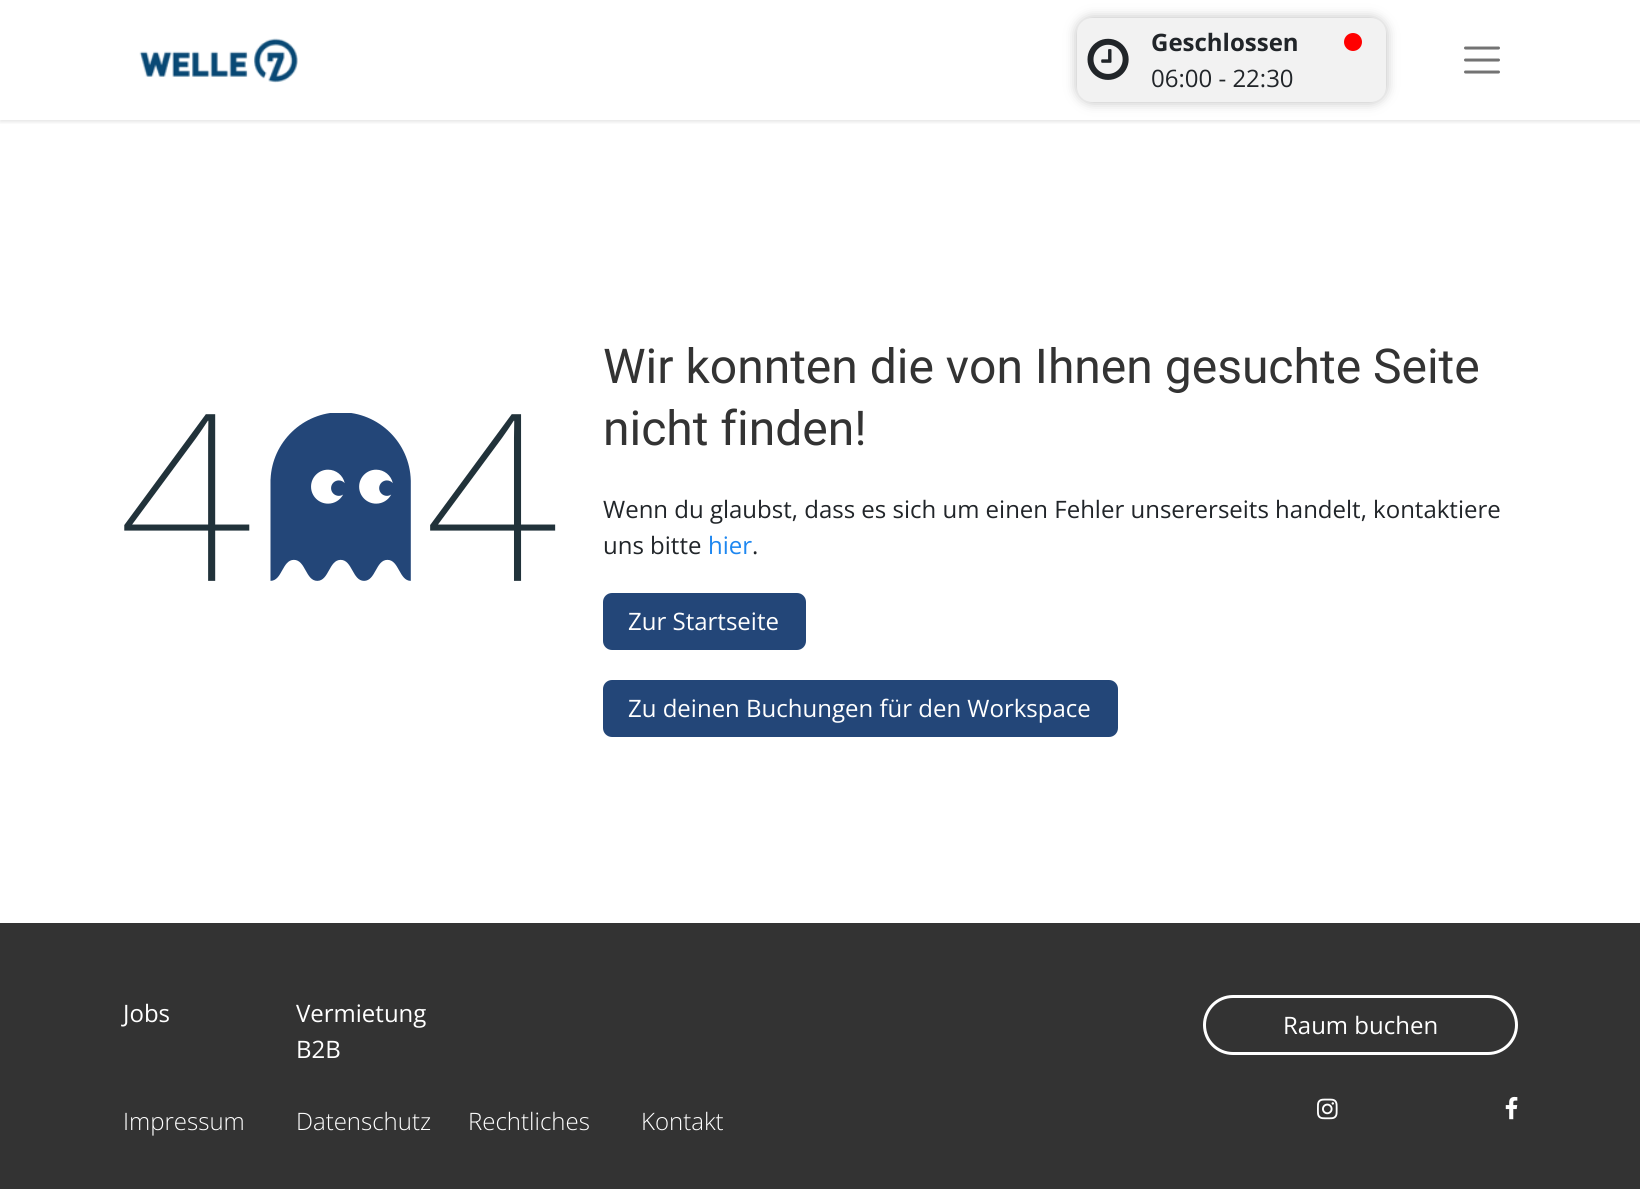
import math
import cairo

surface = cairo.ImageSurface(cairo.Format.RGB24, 1640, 1189)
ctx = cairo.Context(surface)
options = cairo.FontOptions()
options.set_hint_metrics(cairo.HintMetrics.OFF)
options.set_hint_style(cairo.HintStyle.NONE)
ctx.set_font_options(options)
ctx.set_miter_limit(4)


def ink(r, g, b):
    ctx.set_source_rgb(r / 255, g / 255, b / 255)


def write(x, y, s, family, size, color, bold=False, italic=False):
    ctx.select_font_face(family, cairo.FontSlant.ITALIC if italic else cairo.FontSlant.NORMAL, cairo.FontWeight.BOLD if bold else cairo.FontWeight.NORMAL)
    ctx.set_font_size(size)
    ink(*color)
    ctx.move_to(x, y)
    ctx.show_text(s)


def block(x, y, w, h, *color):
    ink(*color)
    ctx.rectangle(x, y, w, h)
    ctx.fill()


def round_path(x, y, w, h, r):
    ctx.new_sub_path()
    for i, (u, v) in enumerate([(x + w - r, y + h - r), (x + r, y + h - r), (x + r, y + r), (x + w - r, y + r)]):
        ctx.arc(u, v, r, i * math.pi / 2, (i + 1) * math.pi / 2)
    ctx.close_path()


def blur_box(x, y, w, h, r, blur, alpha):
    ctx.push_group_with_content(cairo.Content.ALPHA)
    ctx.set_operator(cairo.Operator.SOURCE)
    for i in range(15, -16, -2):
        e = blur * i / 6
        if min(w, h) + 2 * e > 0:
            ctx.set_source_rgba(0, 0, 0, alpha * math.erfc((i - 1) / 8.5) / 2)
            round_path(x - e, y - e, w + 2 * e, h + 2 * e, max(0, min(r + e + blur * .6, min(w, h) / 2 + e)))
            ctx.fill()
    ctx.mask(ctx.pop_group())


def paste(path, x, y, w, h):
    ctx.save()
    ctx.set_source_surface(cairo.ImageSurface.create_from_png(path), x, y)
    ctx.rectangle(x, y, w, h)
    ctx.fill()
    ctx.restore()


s1 = dict(family="Open Sans", size=24, color=(33, 37, 41), bold=True)
s2 = dict(family="Open Sans", size=24, color=(33, 37, 41))
s3 = dict(family="Roboto", size=48, color=(51, 51, 51))
s4 = dict(family="Open Sans", size=24, color=(30, 135, 240))
s5 = dict(family="Open Sans", size=24, color=(255, 255, 255))
s6 = dict(family="Open Sans Light", size=24, color=(255, 255, 255))

ink(255, 255, 255)
ctx.paint()
ctx.save()
ctx.rectangle(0, 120, 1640, 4)
ctx.clip()
ink(0, 0, 0)
blur_box(0, 2, 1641, 120, 0, 2, 0.1)
ctx.restore()
paste("pic1.png", 139, 38, 159, 45)
ink(187, 187, 187)
blur_box(1077, 18, 309, 84, 15, 6, 1)
ink(242, 242, 242)
round_path(1077, 18, 309, 84, 15)
ctx.fill()
paste("pic2.png", 1087, 38, 42, 42)
write(1151, 51, "Geschlossen", **s1)
ink(255, 0, 0)
ctx.new_path()
ctx.arc(1353, 42, 9, 0, 2 * math.pi)
ctx.fill()
write(1151, 87, "06:00 - 22:30", **s2)
ctx.new_path()
ctx.move_to(1465.5, 48)
ctx.line_to(1498.5, 48)
ctx.move_to(1465.5, 60)
ctx.line_to(1498.5, 60)
ctx.move_to(1465.5, 72)
ctx.line_to(1498.5, 72)
ink(115, 115, 115)
ctx.set_line_width(3)
ctx.set_line_cap(cairo.LineCap.ROUND)
ctx.stroke()
paste("pic3.png", 124, 413, 432, 168)
write(603, 383, "Wir konnten die von Ihnen gesuchte Seite", **s3)
write(603, 445, "nicht finden!", **s3)
write(603, 518, "Wenn du glaubst, dass es sich um einen Fehler unsererseits handelt, kontaktiere", **s2)
write(603, 554, "uns bitte", **s2)
write(708, 554, "hier", **s4)
write(752, 554, ".", **s2)
ink(35, 70, 120)
round_path(604, 594, 201, 55, 8)
ctx.fill_preserve()
ctx.set_line_width(2)
ctx.set_line_cap(cairo.LineCap.BUTT)
ctx.stroke()
write(628, 630, "Zur Startseite", **s5)
ink(35, 70, 120)
round_path(604, 681, 513, 55, 8)
ctx.fill_preserve()
ctx.stroke()
write(628, 717, "Zu deinen Buchungen für den Workspace", **s5)
block(0, 923, 1640, 266, 51, 51, 51)
write(123, 1022, "Jobs", **s5)
write(296, 1022, "Vermietung", **s5)
write(296, 1058, "B2B", **s5)
write(123, 1130, "Impressum", **s6)
write(296, 1130, "Datenschutz", **s6)
write(468, 1130, "Rechtliches", **s6)
write(641, 1130, "Kontakt", **s6)
round_path(1204.5, 996.5, 312, 57, 28.5)
ctx.set_line_width(3)
ctx.stroke()
write(1283, 1034, "Raum buchen", **s5)
paste("pic4.png", 1317, 1098, 21, 22)
paste("pic5.png", 1505, 1096, 13, 24)
surface.write_to_png("screenshot.png")
